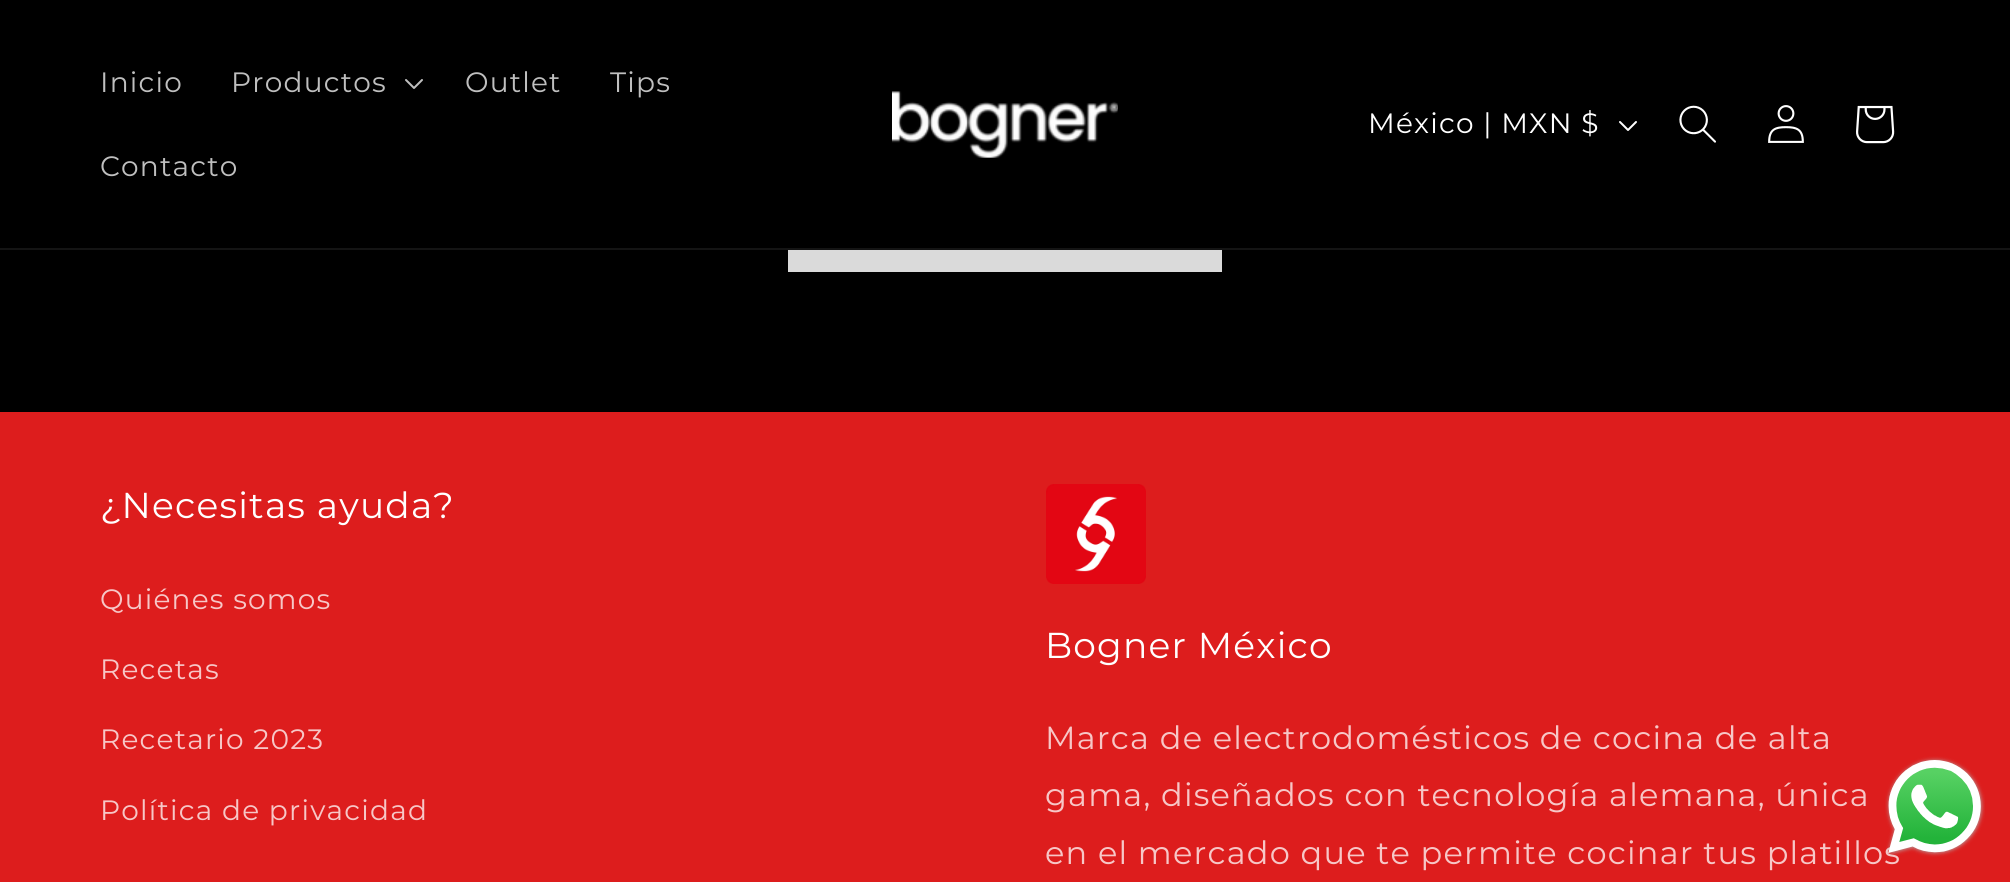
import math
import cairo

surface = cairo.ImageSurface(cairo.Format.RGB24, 2010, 882)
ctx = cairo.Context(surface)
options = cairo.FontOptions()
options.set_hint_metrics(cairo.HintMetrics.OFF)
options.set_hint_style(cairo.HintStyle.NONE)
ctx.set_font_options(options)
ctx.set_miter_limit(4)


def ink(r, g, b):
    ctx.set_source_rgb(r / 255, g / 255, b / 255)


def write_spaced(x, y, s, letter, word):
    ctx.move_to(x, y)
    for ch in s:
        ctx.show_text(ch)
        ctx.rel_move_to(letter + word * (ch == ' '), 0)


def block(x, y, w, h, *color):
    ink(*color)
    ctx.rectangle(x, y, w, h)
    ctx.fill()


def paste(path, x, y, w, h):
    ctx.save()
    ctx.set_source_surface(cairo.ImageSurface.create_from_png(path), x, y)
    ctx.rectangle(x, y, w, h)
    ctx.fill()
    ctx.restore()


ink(0, 0, 0)
ctx.paint()
block(0, 248, 2010, 2, 20, 20, 20)
ctx.select_font_face("Montserrat")
ctx.set_font_size(28)
ink(191, 191, 191)
write_spaced(100, 92, "Inicio", 1.2, 0)
write_spaced(231, 92, "Productos", 1.2, 0)
paste("pic1.png", 405, 79, 18, 10)
write_spaced(465, 92, "Outlet", 1.2, 0)
write_spaced(610, 92, "Tips", 1.2, 0)
write_spaced(100, 176, "Contacto", 1.2, 0)
paste("pic2.png", 892, 91, 226, 67)
ink(255, 255, 255)
write_spaced(1368, 133, "México | MXN $", 1.2, 0)
paste("pic3.png", 1619, 121, 18, 10)
paste("pic4.png", 1679, 105, 37, 38)
paste("pic5.png", 1768, 105, 36, 38)
paste("pic6.png", 1856, 105, 39, 39)
block(788, 250, 434, 22, 218, 218, 218)
block(0, 412, 2010, 470, 221, 29, 29)
ctx.set_font_size(36)
ink(255, 255, 255)
write_spaced(100, 518, "¿Necesitas ayuda?", 1.2, 0)
ctx.set_font_size(28)
ink(247, 199, 199)
write_spaced(100, 609, "Quiénes somos", 1.2, 0)
write_spaced(100, 679, "Recetas", 1.2, 0)
write_spaced(100, 749, "Recetario 2023", 1.2, 0)
write_spaced(100, 820, "Política de privacidad", 1.2, 0)
paste("pic7.png", 1046, 484, 100, 100)
ctx.set_font_size(36)
ink(255, 255, 255)
write_spaced(1045, 658, "Bogner México", 1.2, 0)
ctx.set_font_size(32)
ink(247, 199, 199)
write_spaced(1045, 749, "Marca de electrodomésticos de cocina de alta", 1.2, 0)
write_spaced(1045, 806, "gama, diseñados con tecnología alemana, única", 1.2, 0)
write_spaced(1045, 864, "en el mercado que te permite cocinar tus platillos", 1.2, 0)
paste("pic8.png", 1885, 756, 100, 101)
surface.write_to_png("screenshot.png")
